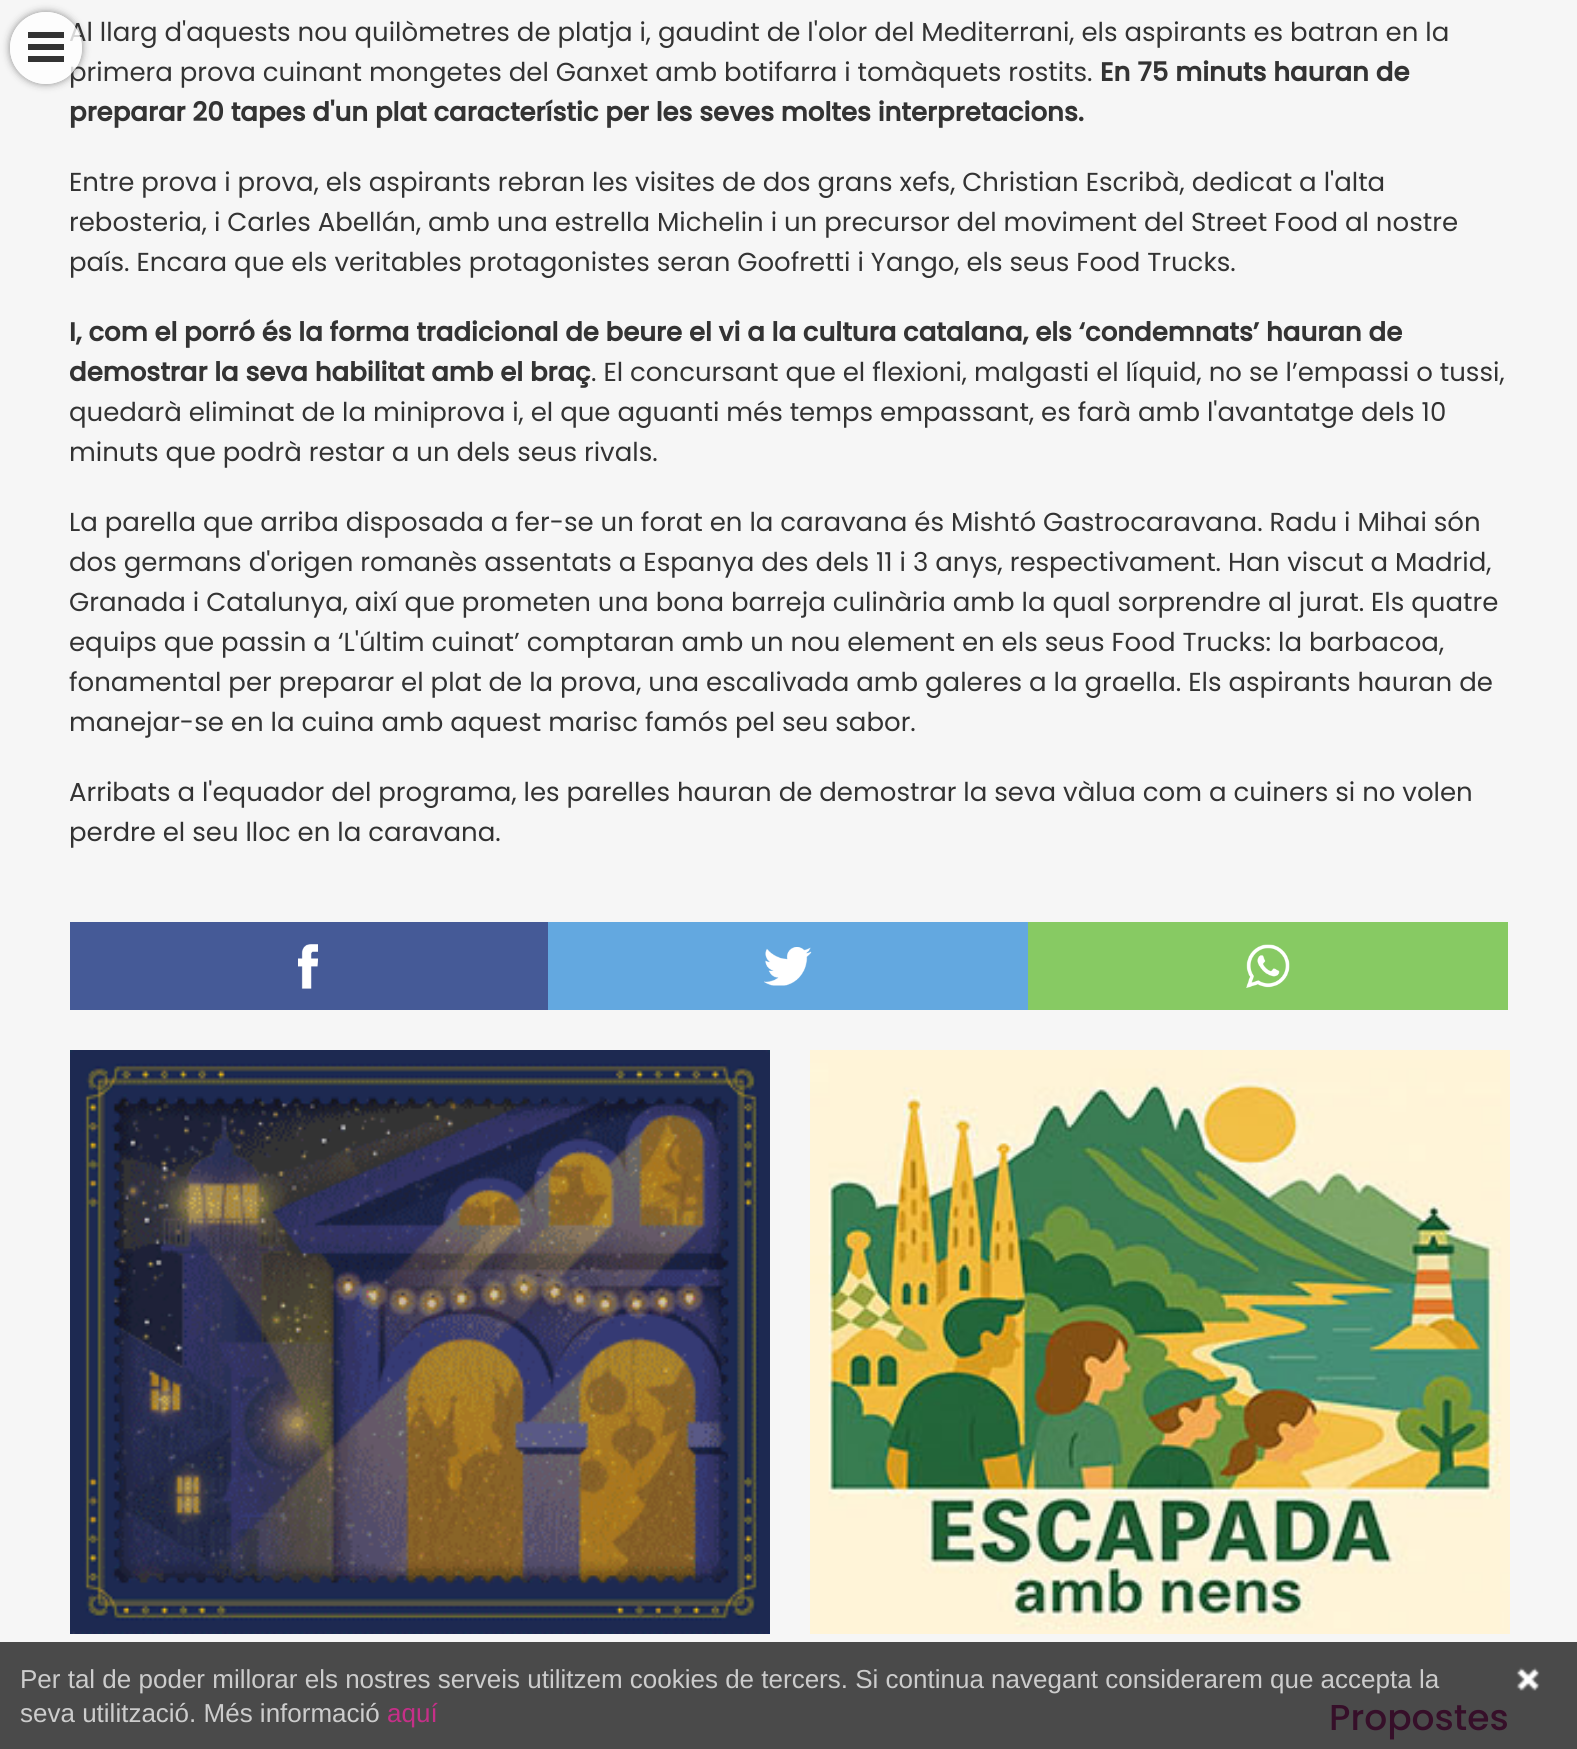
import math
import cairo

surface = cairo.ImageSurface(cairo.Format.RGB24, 1577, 1749)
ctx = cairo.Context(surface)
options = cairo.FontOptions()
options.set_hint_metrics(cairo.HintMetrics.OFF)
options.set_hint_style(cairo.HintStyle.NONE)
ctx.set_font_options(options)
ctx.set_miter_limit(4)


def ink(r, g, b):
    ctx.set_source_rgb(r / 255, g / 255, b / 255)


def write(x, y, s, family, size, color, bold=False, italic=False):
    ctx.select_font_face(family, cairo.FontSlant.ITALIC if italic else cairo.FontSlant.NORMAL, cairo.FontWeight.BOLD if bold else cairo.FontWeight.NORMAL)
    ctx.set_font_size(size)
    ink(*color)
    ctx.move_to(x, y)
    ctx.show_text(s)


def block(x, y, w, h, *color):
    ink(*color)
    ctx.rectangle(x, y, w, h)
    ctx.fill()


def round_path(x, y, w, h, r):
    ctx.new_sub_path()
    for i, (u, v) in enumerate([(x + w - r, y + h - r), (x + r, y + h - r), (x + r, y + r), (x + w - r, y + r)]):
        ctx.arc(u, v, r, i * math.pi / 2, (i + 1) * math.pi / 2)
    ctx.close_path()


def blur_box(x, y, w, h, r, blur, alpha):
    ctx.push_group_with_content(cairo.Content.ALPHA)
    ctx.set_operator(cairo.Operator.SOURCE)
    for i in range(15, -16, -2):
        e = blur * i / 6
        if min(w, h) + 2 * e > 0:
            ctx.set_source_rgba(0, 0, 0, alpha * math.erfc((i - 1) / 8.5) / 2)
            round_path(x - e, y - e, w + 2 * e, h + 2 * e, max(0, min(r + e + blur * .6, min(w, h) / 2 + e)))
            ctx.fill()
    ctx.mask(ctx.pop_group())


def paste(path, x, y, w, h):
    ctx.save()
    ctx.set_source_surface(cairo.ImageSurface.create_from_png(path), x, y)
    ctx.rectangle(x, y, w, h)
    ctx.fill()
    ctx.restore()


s1 = dict(family="Poppins", size=26, color=(51, 51, 51))
s2 = dict(family="Poppins", size=26, color=(51, 51, 51), bold=True)
s3 = dict(family="Poppins Medium", size=36, color=(54, 15, 41))
s4 = dict(family="Liberation Sans", size=26, color=(204, 204, 204))
s5 = dict(family="Liberation Sans", size=26, color=(198, 47, 136))

ink(246, 246, 246)
ctx.paint()
block(0, 1642, 1577, 107, 74, 74, 74)
ctx.save()
ctx.set_fill_rule(cairo.FillRule.EVEN_ODD)
ctx.new_path()
ctx.move_to(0, 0)
ctx.line_to(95, 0)
ctx.line_to(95, 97)
ctx.line_to(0, 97)
ctx.close_path()
ctx.move_to(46, 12)
ctx.curve_to(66, 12, 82, 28, 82, 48)
ctx.curve_to(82, 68, 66, 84, 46, 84)
ctx.curve_to(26, 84, 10, 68, 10, 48)
ctx.curve_to(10, 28, 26, 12, 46, 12)
ctx.close_path()
ctx.clip()
ink(136, 136, 136)
blur_box(10, 12, 72, 72, 36, 4, 1)
ctx.restore()
write(69, 41, "Al llarg d'aquests nou quilòmetres de platja i, gaudint de l'olor del Mediterrani, els aspirants es batran en la", **s1)
write(69, 81, "primera prova cuinant mongetes del Ganxet amb botifarra i tomàquets rostits.", **s1)
ctx.set_source_rgba(1, 1, 1, 0.8)
ctx.new_path()
ctx.arc(46, 48, 36, 0, 2 * math.pi)
ctx.fill()
block(28, 32, 36, 6, 51, 51, 51)
block(28, 44, 36, 6, 51, 51, 51)
block(28, 56, 36, 6, 51, 51, 51)
write(1100, 81, "En 75 minuts hauran de", **s2)
write(69, 121, "preparar 20 tapes d'un plat característic per les seves moltes interpretacions.", **s2)
write(69, 191, "Entre prova i prova, els aspirants rebran les visites de dos grans xefs, Christian Escribà, dedicat a l'alta", **s1)
write(69, 231, "rebosteria, i Carles Abellán, amb una estrella Michelin i un precursor del moviment del Street Food al nostre", **s1)
write(69, 271, "país. Encara que els veritables protagonistes seran Goofretti i Yango, els seus Food Trucks.", **s1)
write(69, 341, "I, com el porró és la forma tradicional de beure el vi a la cultura catalana, els ‘condemnats’ hauran de", **s2)
write(69, 381, "demostrar la seva habilitat amb el braç", **s2)
write(591, 381, ". El concursant que el flexioni, malgasti el líquid, no se l’empassi o tussi,", **s1)
write(69, 421, "quedarà eliminat de la miniprova i, el que aguanti més temps empassant, es farà amb l'avantatge dels 10", **s1)
write(69, 461, "minuts que podrà restar a un dels seus rivals.", **s1)
write(69, 531, "La parella que arriba disposada a fer-se un forat en la caravana és Mishtó Gastrocaravana. Radu i Mihai són", **s1)
write(69, 571, "dos germans d'origen romanès assentats a Espanya des dels 11 i 3 anys, respectivament. Han viscut a Madrid,", **s1)
write(69, 611, "Granada i Catalunya, així que prometen una bona barreja culinària amb la qual sorprendre al jurat. Els quatre", **s1)
write(69, 651, "equips que passin a ‘L'últim cuinat’ comptaran amb un nou element en els seus Food Trucks: la barbacoa,", **s1)
write(69, 691, "fonamental per preparar el plat de la prova, una escalivada amb galeres a la graella. Els aspirants hauran de", **s1)
write(69, 731, "manejar-se en la cuina amb aquest marisc famós pel seu sabor.", **s1)
write(69, 801, "Arribats a l'equador del programa, les parelles hauran de demostrar la seva vàlua com a cuiners si no volen", **s1)
write(69, 841, "perdre el seu lloc en la caravana.", **s1)
block(70, 922, 478, 88, 69, 90, 151)
paste("pic1.png", 298, 944, 20, 45)
block(548, 922, 480, 88, 99, 168, 224)
paste("pic2.png", 764, 947, 48, 39)
block(1028, 922, 480, 88, 135, 202, 99)
paste("pic3.png", 1246, 944, 44, 44)
paste("pic4.png", 70, 1050, 700, 584)
paste("pic5.png", 810, 1050, 700, 584)
write(1329, 1730, "Propostes", **s3)
write(20, 1688, "Per tal de poder millorar els nostres serveis utilitzem cookies de tercers. Si continua navegant considerarem que accepta la", **s4)
paste("pic6.png", 1516, 1667, 24, 24)
write(20, 1722, "seva utilització. Més informació", **s4)
write(387, 1722, "aquí", **s5)
surface.write_to_png("screenshot.png")
